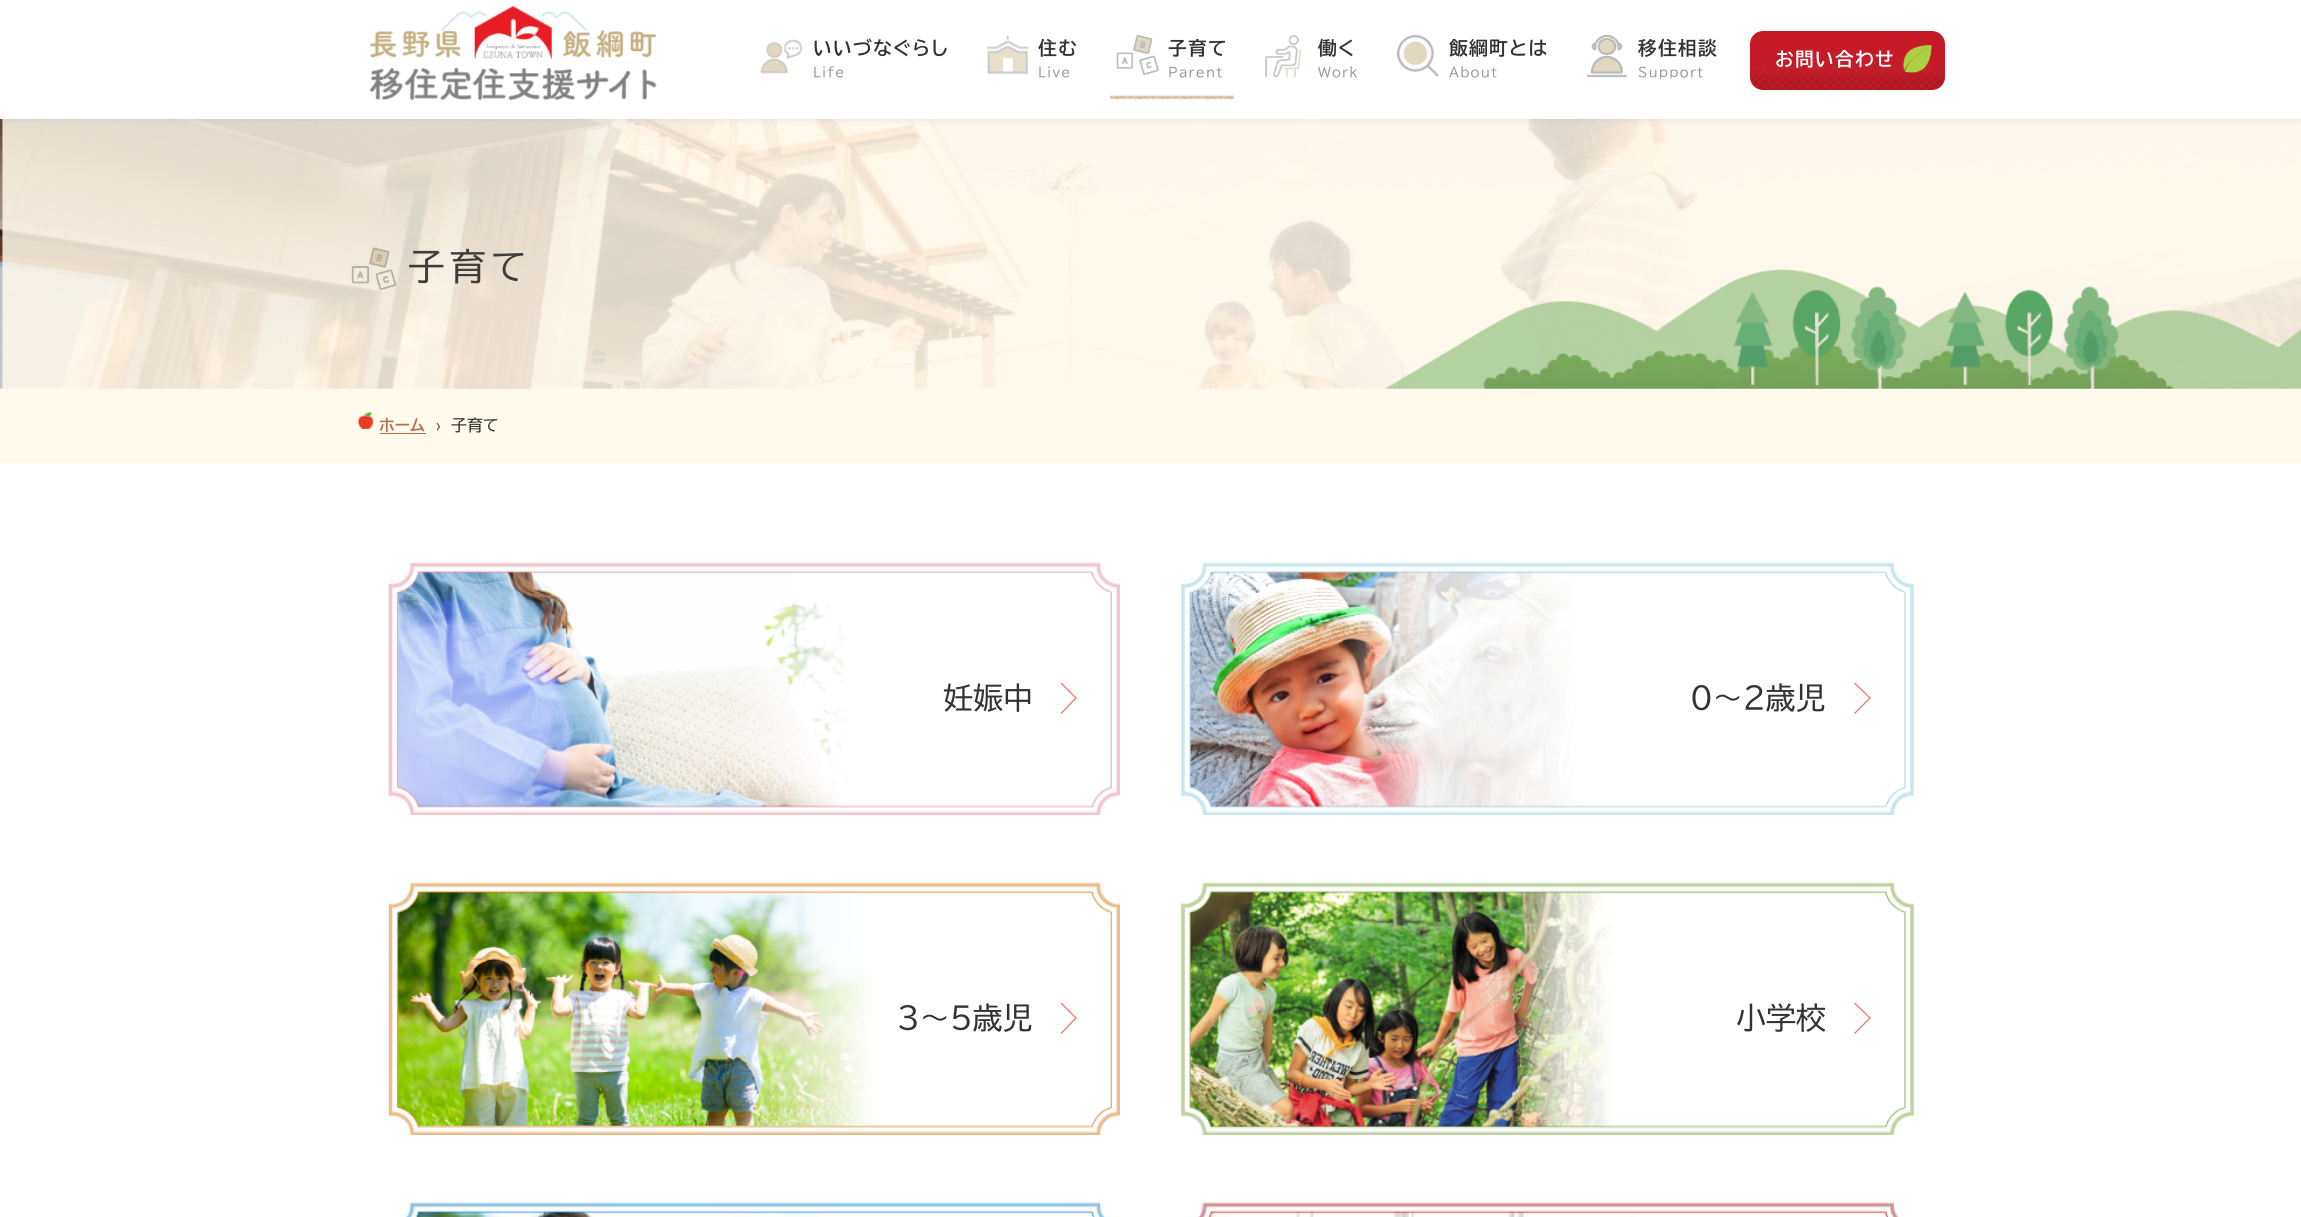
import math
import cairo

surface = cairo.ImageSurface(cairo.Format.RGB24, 2301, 1217)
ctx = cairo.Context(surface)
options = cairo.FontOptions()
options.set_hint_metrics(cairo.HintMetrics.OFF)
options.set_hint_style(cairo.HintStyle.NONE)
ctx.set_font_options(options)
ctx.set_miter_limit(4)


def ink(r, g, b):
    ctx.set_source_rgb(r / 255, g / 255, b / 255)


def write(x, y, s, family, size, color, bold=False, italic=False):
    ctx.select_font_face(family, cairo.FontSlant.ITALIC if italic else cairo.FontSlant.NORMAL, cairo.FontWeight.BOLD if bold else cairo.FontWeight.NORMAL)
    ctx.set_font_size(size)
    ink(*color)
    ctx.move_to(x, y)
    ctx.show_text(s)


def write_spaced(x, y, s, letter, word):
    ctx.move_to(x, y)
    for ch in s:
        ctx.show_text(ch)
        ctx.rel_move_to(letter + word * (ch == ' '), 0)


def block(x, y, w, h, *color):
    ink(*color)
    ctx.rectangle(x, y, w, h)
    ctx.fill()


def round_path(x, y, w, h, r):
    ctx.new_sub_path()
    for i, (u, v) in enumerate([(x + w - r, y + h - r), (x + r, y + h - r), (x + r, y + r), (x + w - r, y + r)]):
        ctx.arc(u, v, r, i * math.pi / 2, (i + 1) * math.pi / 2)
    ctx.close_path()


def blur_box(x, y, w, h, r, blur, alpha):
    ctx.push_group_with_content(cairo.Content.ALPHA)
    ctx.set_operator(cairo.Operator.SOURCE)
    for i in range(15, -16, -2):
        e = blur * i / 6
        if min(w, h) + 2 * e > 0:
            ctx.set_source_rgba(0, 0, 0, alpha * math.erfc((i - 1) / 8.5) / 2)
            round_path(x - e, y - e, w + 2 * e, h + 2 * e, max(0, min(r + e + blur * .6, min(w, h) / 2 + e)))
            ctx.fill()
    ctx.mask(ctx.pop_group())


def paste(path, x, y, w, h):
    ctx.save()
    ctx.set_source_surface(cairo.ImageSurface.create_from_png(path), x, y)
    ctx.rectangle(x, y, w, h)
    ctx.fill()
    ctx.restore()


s1 = dict(family="BIZ UDPGothic", size=16, color=(181, 113, 78), bold=True)
s2 = dict(family="BIZ UDPGothic", size=16, color=(35, 35, 35))
s3 = dict(family="BIZ UDPGothic", size=30, color=(51, 51, 51))

ink(255, 255, 255)
ctx.paint()
paste("pic11.png", 0, 119, 2301, 270)
ink(128, 128, 128)
blur_box(0, 0, 2301, 119, 0, 4, 0.2)
block(0, 0, 2301, 119, 255, 255, 255)
paste("pic1.png", 369, 6, 288, 95)
paste("pic2.png", 760, 39, 43, 35)
ctx.select_font_face("BIZ UDPGothic", cairo.FontSlant.NORMAL, cairo.FontWeight.BOLD)
ctx.set_font_size(18.75)
ink(51, 51, 51)
write_spaced(813, 55, "いいづなぐらし", 1.25, 0)
ctx.select_font_face("BIZ UDPGothic")
ctx.set_font_size(13)
ink(150, 150, 150)
write_spaced(813, 77, "Life", 1.25, 0)
paste("pic3.png", 987, 35, 42, 40)
ctx.select_font_face("BIZ UDPGothic", cairo.FontSlant.NORMAL, cairo.FontWeight.BOLD)
ctx.set_font_size(18.75)
ink(51, 51, 51)
write_spaced(1038, 55, "住む", 1.25, 0)
ctx.select_font_face("BIZ UDPGothic")
ctx.set_font_size(13)
ink(150, 150, 150)
write_spaced(1038, 77, "Live", 1.25, 0)
paste("pic4.png", 1110, 94, 124, 6)
paste("pic5.png", 1116, 35, 43, 40)
ctx.select_font_face("BIZ UDPGothic", cairo.FontSlant.NORMAL, cairo.FontWeight.BOLD)
ctx.set_font_size(18.75)
ink(51, 51, 51)
write_spaced(1168, 55, "子育て", 1.25, 0)
ctx.select_font_face("BIZ UDPGothic")
ctx.set_font_size(13)
ink(150, 150, 150)
write_spaced(1168, 77, "Parent", 1.25, 0)
paste("pic6.png", 1265, 35, 37, 43)
ctx.select_font_face("BIZ UDPGothic", cairo.FontSlant.NORMAL, cairo.FontWeight.BOLD)
ctx.set_font_size(18.75)
ink(51, 51, 51)
write_spaced(1318, 55, "働く", 1.25, 0)
ctx.select_font_face("BIZ UDPGothic")
ctx.set_font_size(13)
ink(150, 150, 150)
write_spaced(1318, 77, "Work", 1.25, 0)
paste("pic7.png", 1397, 35, 42, 42)
ctx.select_font_face("BIZ UDPGothic", cairo.FontSlant.NORMAL, cairo.FontWeight.BOLD)
ctx.set_font_size(18.75)
ink(51, 51, 51)
write_spaced(1449, 55, "飯綱町とは", 1.25, 0)
ctx.select_font_face("BIZ UDPGothic")
ctx.set_font_size(13)
ink(150, 150, 150)
write_spaced(1449, 77, "About", 1.25, 0)
paste("pic8.png", 1586, 35, 42, 43)
ctx.select_font_face("BIZ UDPGothic", cairo.FontSlant.NORMAL, cairo.FontWeight.BOLD)
ctx.set_font_size(18.75)
ink(51, 51, 51)
write_spaced(1638, 55, "移住相談", 1.25, 0)
ctx.select_font_face("BIZ UDPGothic")
ctx.set_font_size(13)
ink(150, 150, 150)
write_spaced(1638, 77, "Support", 1.25, 0)
ink(198, 26, 38)
round_path(1750, 31, 195, 59, 13)
ctx.fill()
paste("pic9.png", 1750, 66, 195, 24)
ctx.select_font_face("BIZ UDPGothic", cairo.FontSlant.NORMAL, cairo.FontWeight.BOLD)
ctx.set_font_size(18.75)
ink(255, 255, 255)
write_spaced(1775, 66, "お問い合わせ", 1.25, 0)
paste("pic10.png", 1903, 45, 29, 28)
paste("pic12.png", 351, 247, 46, 43)
ctx.select_font_face("BIZ UDPGothic")
ctx.set_font_size(36.5)
ink(61, 61, 61)
write_spaced(408, 280, "子育て", 5, 0)
block(0, 389, 2301, 74, 255, 250, 236)
paste("pic13.png", 357, 412, 17, 18)
write(379, 431, "ホーム", **s1)
block(380, 433, 46, 1, 181, 113, 78)
write(436, 431, "›", **s2)
write(451, 431, "子育て", **s2)
paste("pic14.png", 388, 562, 732, 253)
write(943, 709, "妊娠中", **s3)
ctx.new_path()
ctx.move_to(1061, 683)
ctx.line_to(1076, 698)
ctx.line_to(1061, 713.5)
ink(244, 119, 109)
ctx.set_line_width(1.3)
ctx.stroke()
paste("pic15.png", 1181, 562, 733, 253)
write(1690, 709, "0～2歳児", **s3)
ctx.new_path()
ctx.move_to(1854.5, 683)
ctx.line_to(1870, 698)
ctx.line_to(1854.5, 713.5)
ink(244, 119, 109)
ctx.stroke()
paste("pic16.png", 388, 882, 732, 253)
write(897, 1029, "3～5歳児", **s3)
ctx.new_path()
ctx.move_to(1061, 1003)
ctx.line_to(1076, 1018)
ctx.line_to(1061, 1033.5)
ink(244, 119, 109)
ctx.stroke()
paste("pic17.png", 1181, 882, 733, 253)
write(1736, 1029, "小学校", **s3)
ctx.new_path()
ctx.move_to(1854.5, 1003)
ctx.line_to(1870, 1018)
ctx.line_to(1854.5, 1033.5)
ink(244, 119, 109)
ctx.stroke()
paste("pic18.png", 406, 1202, 699, 15)
paste("pic19.png", 1198, 1202, 701, 15)
surface.write_to_png("screenshot.png")
